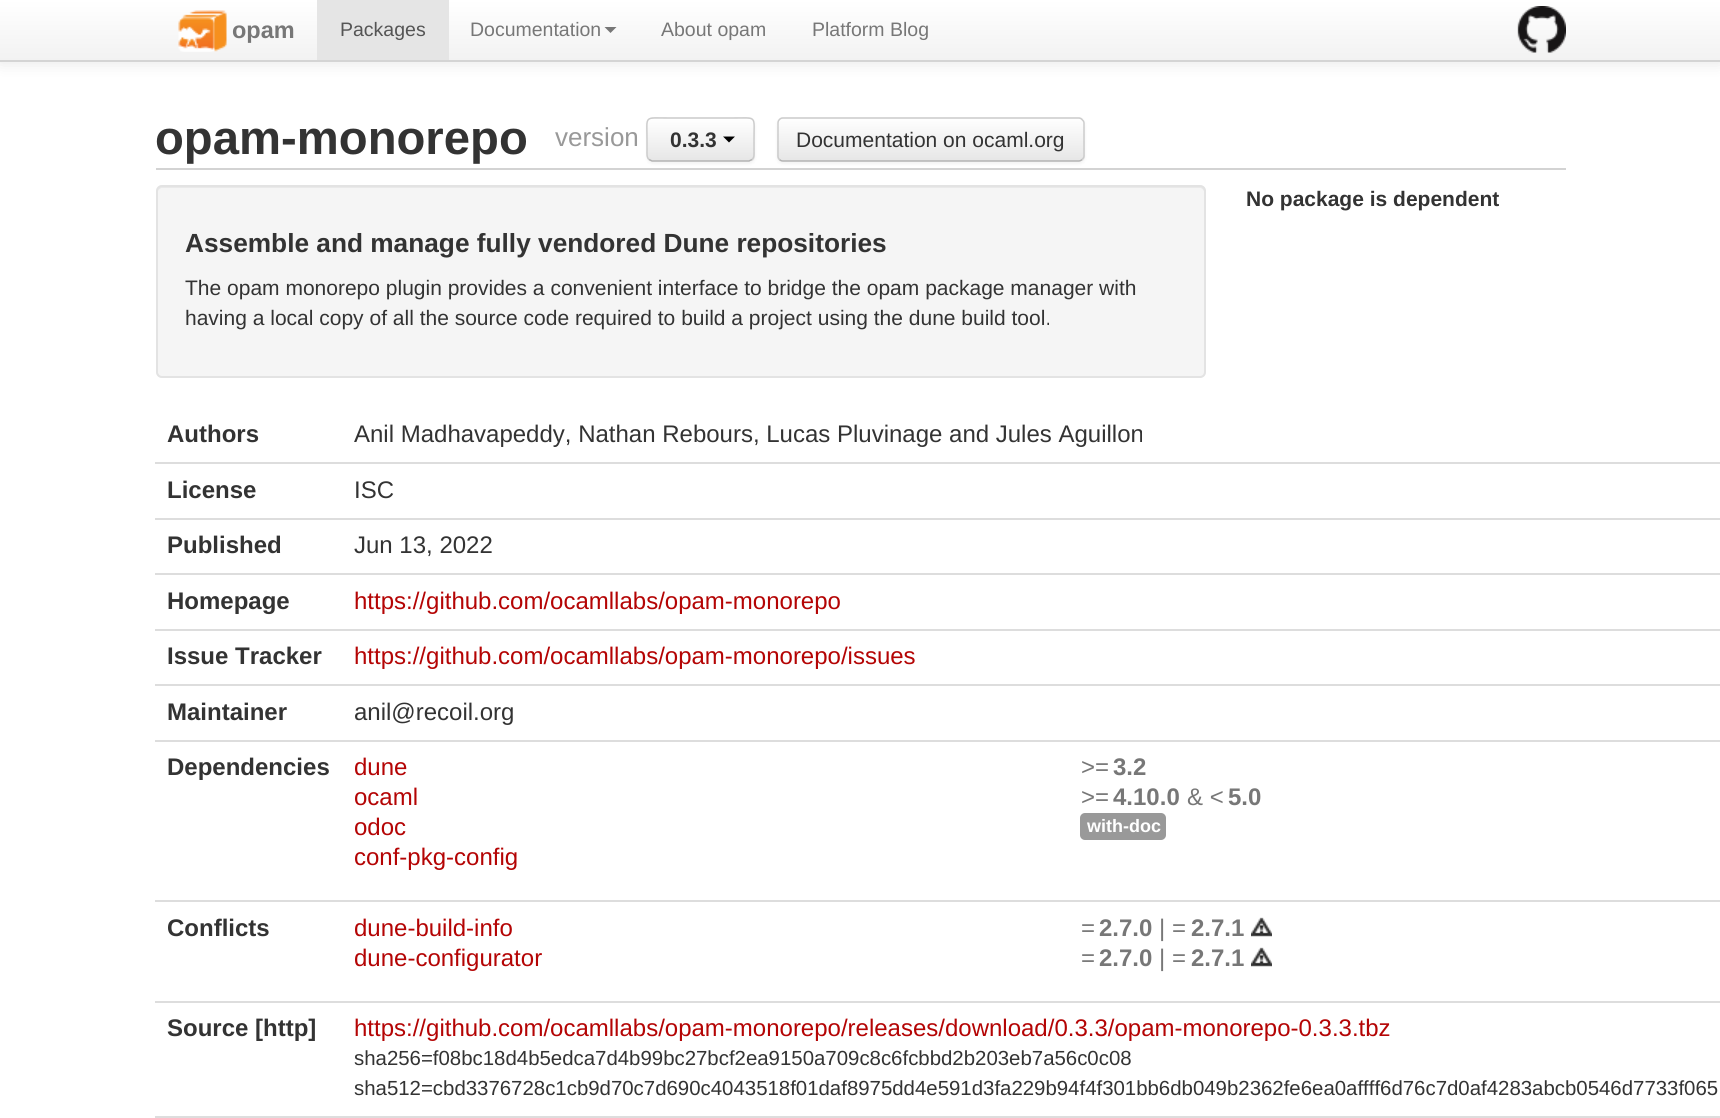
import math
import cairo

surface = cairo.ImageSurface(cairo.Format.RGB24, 1720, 1118)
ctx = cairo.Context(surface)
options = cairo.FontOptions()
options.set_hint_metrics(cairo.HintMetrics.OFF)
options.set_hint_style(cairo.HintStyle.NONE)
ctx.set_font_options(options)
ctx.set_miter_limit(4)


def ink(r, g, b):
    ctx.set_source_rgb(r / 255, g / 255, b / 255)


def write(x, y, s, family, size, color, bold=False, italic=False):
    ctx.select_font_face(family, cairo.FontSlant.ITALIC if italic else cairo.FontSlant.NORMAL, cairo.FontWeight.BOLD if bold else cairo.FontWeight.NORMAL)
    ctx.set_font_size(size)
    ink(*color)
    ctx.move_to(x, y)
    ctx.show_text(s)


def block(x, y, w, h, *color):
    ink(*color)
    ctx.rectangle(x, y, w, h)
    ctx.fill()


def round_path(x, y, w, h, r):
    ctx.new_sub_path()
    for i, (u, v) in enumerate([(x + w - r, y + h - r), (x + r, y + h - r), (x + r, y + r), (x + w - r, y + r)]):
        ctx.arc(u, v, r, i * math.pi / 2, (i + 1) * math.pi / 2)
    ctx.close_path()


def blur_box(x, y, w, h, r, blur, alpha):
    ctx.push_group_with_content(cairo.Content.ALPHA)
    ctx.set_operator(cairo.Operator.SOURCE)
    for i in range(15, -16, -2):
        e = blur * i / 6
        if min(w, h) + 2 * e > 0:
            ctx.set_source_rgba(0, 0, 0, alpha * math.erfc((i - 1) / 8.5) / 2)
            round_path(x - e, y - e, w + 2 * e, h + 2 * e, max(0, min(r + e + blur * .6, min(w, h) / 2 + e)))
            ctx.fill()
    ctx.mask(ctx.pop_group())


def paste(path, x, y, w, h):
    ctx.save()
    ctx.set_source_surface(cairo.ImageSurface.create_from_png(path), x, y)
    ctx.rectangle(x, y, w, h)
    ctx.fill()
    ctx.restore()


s1 = dict(family="Liberation Sans", size=23.5, color=(119, 119, 119), bold=True)
s2 = dict(family="Liberation Sans", size=19.5, color=(85, 85, 85))
s3 = dict(family="Liberation Sans", size=19.5, color=(119, 119, 119))
s4 = dict(family="Liberation Sans", size=47.25, color=(51, 51, 51), bold=True)
s5 = dict(family="Liberation Sans", size=26, color=(153, 153, 153))
s6 = dict(family="Liberation Sans", size=21, color=(51, 51, 51), bold=True)
s7 = dict(family="Liberation Sans", size=21, color=(51, 51, 51))
s8 = dict(family="Liberation Sans", size=26.25, color=(51, 51, 51), bold=True)
s9 = dict(family="Liberation Sans", size=24, color=(51, 51, 51), bold=True)
s10 = dict(family="Liberation Sans", size=24, color=(51, 51, 51))
s11 = dict(family="Liberation Sans", size=24, color=(180, 4, 4))
s12 = dict(family="Liberation Sans", size=24, color=(119, 119, 119))
s13 = dict(family="Liberation Sans", size=24, color=(119, 119, 119), bold=True)
s14 = dict(family="Liberation Sans", size=18, color=(255, 255, 255), bold=True)
s15 = dict(family="Liberation Sans", size=20.4, color=(51, 51, 51))

ink(255, 255, 255)
ctx.paint()
ink(0, 0, 0)
blur_box(0, 2, 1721, 61, 0, 7.5, 0.1)
gradient = cairo.LinearGradient(860, 0, 860, 60)
gradient.add_color_stop_rgba(0, 1, 1, 1, 1)
gradient.add_color_stop_rgba(1, 0.949, 0.949, 0.949, 1)
ctx.set_source(gradient)
ctx.rectangle(0, 0, 1720, 60)
ctx.fill()
block(0, 60, 1720, 2, 212, 212, 212)
paste("pic1.png", 178, 10, 49, 42)
write(232, 38, "opam", **s1)
block(317, 0, 132, 60, 229, 229, 229)
write(340, 36, "Packages", **s2)
write(470, 36, "Documentation", **s3)
ctx.new_path()
ctx.move_to(604.5, 27)
ctx.line_to(616.5, 27)
ctx.line_to(610.5, 33)
ctx.close_path()
ctx.fill()
write(661, 36, "About opam", **s3)
write(812, 36, "Platform Blog", **s3)
paste("pic2.png", 1517, 6, 49, 47)
block(156, 168, 1410, 2, 211, 211, 211)
write(155, 154, "opam-monorepo", **s4)
write(555, 146, "version", **s5)
ink(0, 0, 0)
blur_box(647, 119, 108, 45, 6, 1.5, 0.05)
ink(245, 245, 245)
round_path(647, 117, 108, 45, 6)
ctx.fill()
ctx.save()
round_path(647, 117, 108, 45, 6)
ctx.clip()
gradient = cairo.LinearGradient(701, 119, 701, 161)
gradient.add_color_stop_rgba(0, 1, 1, 1, 1)
gradient.add_color_stop_rgba(1, 0.902, 0.902, 0.902, 1)
ctx.set_source(gradient)
ctx.rectangle(647, 119, 108, 42)
ctx.fill()
ctx.restore()
ctx.new_path()
ctx.move_to(752, 159.5)
ctx.line_to(749, 161)
ctx.line_to(652, 161)
ctx.line_to(649, 159.5)
ink(179, 179, 179)
ctx.set_line_width(1.5)
ctx.stroke()
ctx.new_path()
ctx.move_to(649, 159.5)
ctx.curve_to(646.5, 157.5, 647, 153.5, 647, 150.5)
ctx.line_to(647, 139.5)
ctx.curve_to(647, 115, 643.5, 118, 668.5, 118)
ctx.line_to(732.5, 118)
ctx.curve_to(757.5, 118, 754, 115, 754, 139.5)
ctx.line_to(754, 150.5)
ctx.curve_to(754, 153.5, 754.5, 157.5, 752, 159.5)
ink(204, 204, 204)
ctx.stroke()
write(670, 147, "0.3.3", **s6)
ink(0, 0, 0)
ctx.new_path()
ctx.move_to(723, 136.5)
ctx.line_to(735, 136.5)
ctx.line_to(729, 142.5)
ctx.close_path()
ctx.fill()
ink(0, 0, 0)
blur_box(777, 119, 308, 45, 6, 1.5, 0.05)
ink(245, 245, 245)
round_path(777, 117, 308, 45, 6)
ctx.fill()
ctx.save()
round_path(777, 117, 308, 45, 6)
ctx.clip()
gradient = cairo.LinearGradient(931, 118, 931, 161)
gradient.add_color_stop_rgba(0, 1, 1, 1, 1)
gradient.add_color_stop_rgba(1, 0.902, 0.902, 0.902, 1)
ctx.set_source(gradient)
ctx.rectangle(777, 119, 308, 42)
ctx.fill()
ctx.restore()
ctx.new_path()
ctx.move_to(1082, 159.5)
ctx.curve_to(1081, 160.5, 1080, 161, 1078.5, 161)
ctx.line_to(783, 161)
ctx.curve_to(781.5, 161, 780.5, 160.5, 779.5, 159.5)
ink(179, 179, 179)
ctx.stroke()
ctx.new_path()
ctx.move_to(779.5, 159.5)
ctx.curve_to(778.5, 158.5, 778, 157.5, 778, 156)
ctx.line_to(778, 123)
ctx.curve_to(778, 121.5, 778.5, 120.5, 779.5, 119.5)
ctx.curve_to(780.5, 118.5, 781.5, 118, 783, 118)
ctx.line_to(1078.5, 118)
ctx.curve_to(1080, 118, 1081, 118.5, 1082, 119.5)
ctx.curve_to(1083, 120.5, 1084, 121.5, 1084, 123)
ctx.line_to(1084, 156)
ctx.curve_to(1084, 157.5, 1083, 158.5, 1082, 159.5)
ink(204, 204, 204)
ctx.stroke()
write(796, 147, "Documentation on ocaml.org", **s7)
write(1246, 206, "No package is dependent", **s6)
ink(245, 245, 245)
round_path(156, 185, 1050, 193, 6)
ctx.fill()
ink(233, 233, 233)
ctx.new_path()
ctx.move_to(162, 188)
ctx.line_to(1200, 188)
ctx.curve_to(1202, 188, 1204, 190, 1204, 192)
ctx.line_to(1204, 375)
ctx.curve_to(1205, 374, 1205, 373, 1205, 372)
ctx.line_to(1205, 191)
ctx.curve_to(1205, 188, 1203, 186, 1200, 186)
ctx.line_to(163, 186)
ctx.curve_to(160, 186, 158, 188, 158, 191)
ctx.line_to(158, 192)
ctx.curve_to(158, 190, 160, 188, 162, 188)
ctx.close_path()
ctx.fill()
round_path(157, 186, 1048, 191, 5)
ink(227, 227, 227)
ctx.set_line_width(2)
ctx.stroke()
write(185, 252, "Assemble and manage fully vendored Dune repositories", **s8)
write(185, 295, "The opam monorepo plugin provides a convenient interface to bridge the opam package manager with", **s7)
write(185, 325, "having a local copy of all the source code required to build a project using the dune build tool.", **s7)
write(167, 442, "Authors", **s9)
write(354, 442, "Anil Madhavapeddy, Nathan Rebours, Lucas Pluvinage and Jules Aguillon", **s10)
write(167, 498, "License", **s9)
block(155, 462, 1565, 2, 221, 221, 221)
write(354, 498, "ISC", **s10)
write(167, 553, "Published", **s9)
block(155, 518, 1565, 2, 221, 221, 221)
write(354, 553, "Jun 13, 2022", **s10)
write(167, 609, "Homepage", **s9)
block(155, 573, 1565, 2, 221, 221, 221)
write(354, 609, "https://github.com/ocamllabs/opam-monorepo", **s11)
write(167, 664, "Issue Tracker", **s9)
block(155, 629, 1565, 2, 221, 221, 221)
write(354, 664, "https://github.com/ocamllabs/opam-monorepo/issues", **s11)
write(167, 720, "Maintainer", **s9)
block(155, 684, 1565, 2, 221, 221, 221)
write(354, 720, "anil@recoil.org", **s10)
write(167, 775, "Dependencies", **s9)
block(155, 740, 1565, 2, 221, 221, 221)
write(354, 775, "dune", **s11)
write(1081, 775, ">=", **s12)
write(1113, 775, "3.2", **s13)
write(354, 805, "ocaml", **s11)
write(1081, 805, ">=", **s12)
write(1113, 805, "4.10.0", **s13)
write(1187, 805, "& <", **s12)
write(1228, 805, "5.0", **s13)
write(354, 835, "odoc", **s11)
ink(153, 153, 153)
round_path(1080, 813, 86, 27, 5)
ctx.fill()
write(1087, 832, "with-doc", **s14)
write(354, 865, "conf-pkg-config", **s11)
write(167, 936, "Conflicts", **s9)
block(155, 900, 1565, 2, 221, 221, 221)
write(354, 936, "dune-build-info", **s11)
write(1081, 936, "=", **s12)
write(1099, 936, "2.7.0", **s13)
write(1159, 936, "| =", **s12)
write(1191, 936, "2.7.1", **s13)
paste("pic3.png", 1251, 917, 21, 20)
write(354, 966, "dune-configurator", **s11)
write(1081, 966, "=", **s12)
write(1099, 966, "2.7.0", **s13)
write(1159, 966, "| =", **s12)
write(1191, 966, "2.7.1", **s13)
paste("pic3.png", 1251, 947, 21, 20)
write(167, 1036, "Source [http]", **s9)
block(155, 1001, 1565, 2, 221, 221, 221)
write(354, 1036, "https://github.com/ocamllabs/opam-monorepo/releases/download/0.3.3/opam-monorepo-0.3.3.tbz", **s11)
write(354, 1065, "sha256=f08bc18d4b5edca7d4b99bc27bcf2ea9150a709c8c6fcbbd2b203eb7a56c0c08", **s15)
write(354, 1095, "sha512=cbd3376728c1cb9d70c7d690c4043518f01daf8975dd4e591d3fa229b94f4f301bb6db049b2362fe6ea0affff6d76c7d0af4283abcb0546d7733f065", **s15)
block(155, 1116, 1565, 2, 221, 221, 221)
surface.write_to_png("screenshot.png")
